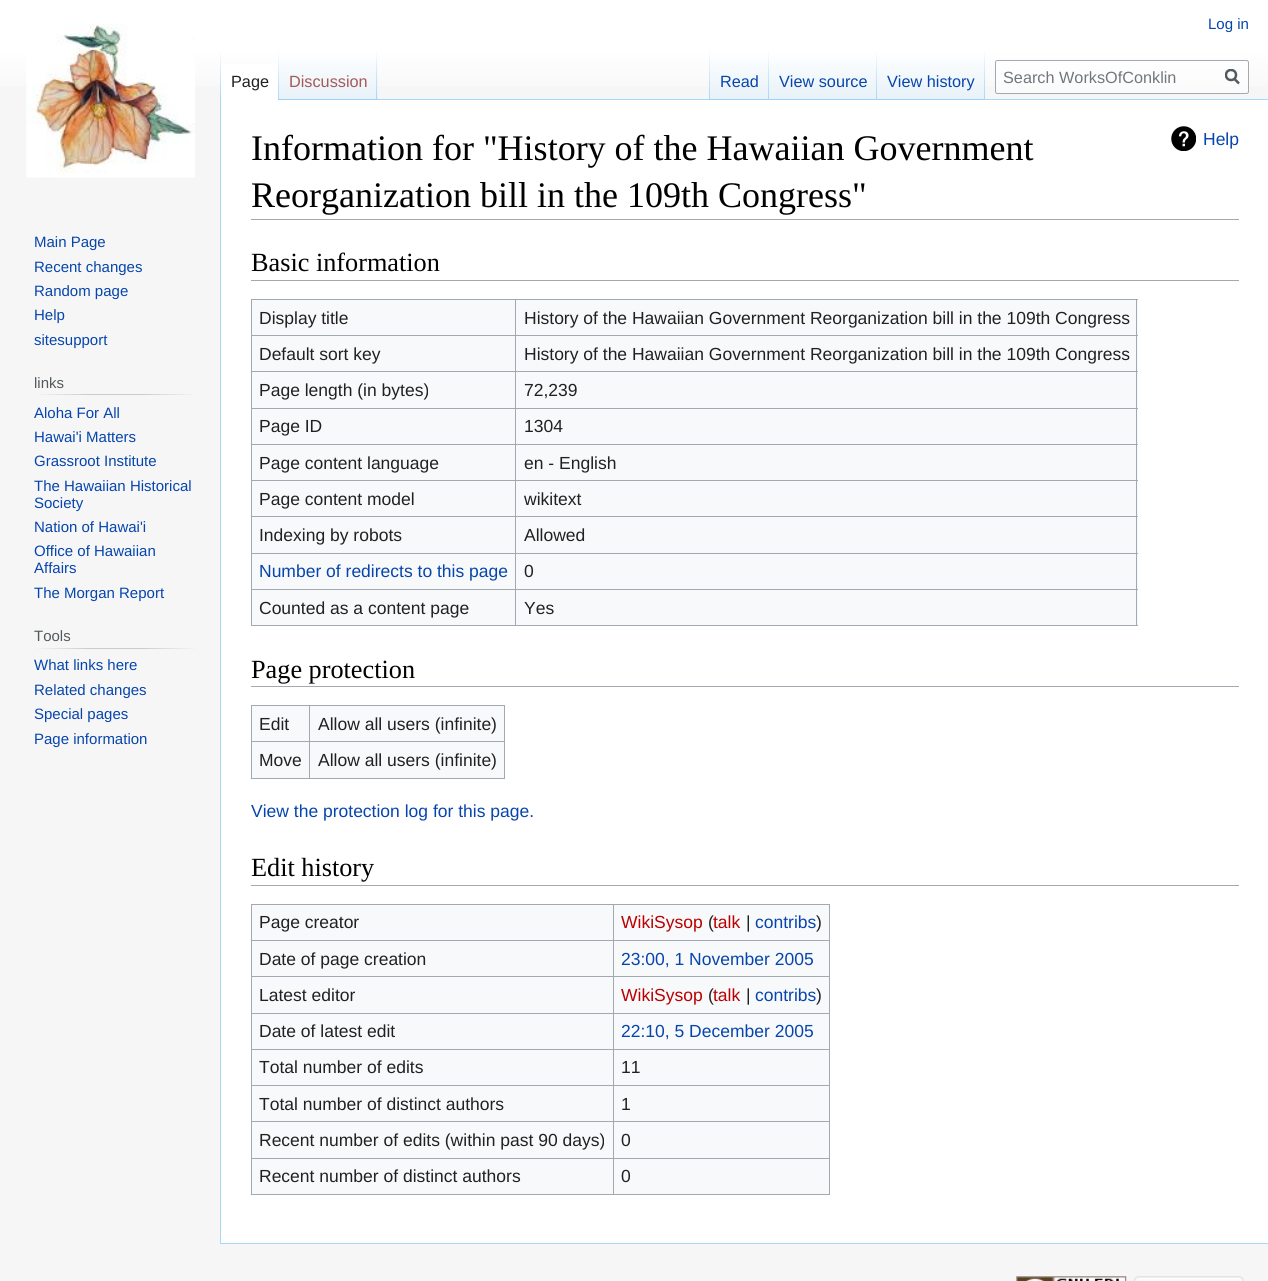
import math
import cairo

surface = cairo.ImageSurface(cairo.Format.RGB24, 1268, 1281)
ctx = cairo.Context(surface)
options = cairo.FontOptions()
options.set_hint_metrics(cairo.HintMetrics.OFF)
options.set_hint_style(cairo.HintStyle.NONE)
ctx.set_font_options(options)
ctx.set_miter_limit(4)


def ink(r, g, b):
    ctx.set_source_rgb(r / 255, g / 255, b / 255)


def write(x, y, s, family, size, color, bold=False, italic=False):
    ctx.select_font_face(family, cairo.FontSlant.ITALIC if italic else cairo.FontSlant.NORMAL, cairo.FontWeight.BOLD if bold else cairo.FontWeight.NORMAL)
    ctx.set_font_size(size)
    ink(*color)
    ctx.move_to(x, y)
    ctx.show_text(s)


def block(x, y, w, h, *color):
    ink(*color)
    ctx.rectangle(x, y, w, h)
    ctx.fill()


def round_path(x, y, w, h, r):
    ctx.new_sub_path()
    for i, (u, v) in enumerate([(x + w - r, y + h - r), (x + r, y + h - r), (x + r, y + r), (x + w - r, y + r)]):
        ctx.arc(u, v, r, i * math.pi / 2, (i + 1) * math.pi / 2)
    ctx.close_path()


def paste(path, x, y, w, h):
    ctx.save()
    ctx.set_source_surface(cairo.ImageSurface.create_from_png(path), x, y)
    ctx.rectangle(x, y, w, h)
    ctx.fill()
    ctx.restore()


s1 = dict(family="Liberation Sans", size=15, color=(6, 69, 173))
s2 = dict(family="Liberation Sans", size=16.25, color=(32, 33, 34))
s3 = dict(family="Liberation Sans", size=16.25, color=(165, 88, 88))
s4 = dict(family="Liberation Sans", size=16.25, color=(6, 69, 173))
s5 = dict(family="Liberation Sans", size=16.25, color=(114, 119, 125))
s6 = dict(family="Liberation Sans", size=15, color=(84, 89, 93))
s7 = dict(family="Liberation Serif", size=36, color=(0, 0, 0))
s8 = dict(family="Liberation Sans", size=17.5, color=(6, 69, 173))
s9 = dict(family="Liberation Serif", size=26.25, color=(0, 0, 0))
s10 = dict(family="Liberation Sans", size=17.5, color=(32, 33, 34))
s11 = dict(family="Liberation Sans", size=17.5, color=(186, 0, 0))

ink(246, 246, 246)
ctx.paint()
gradient = cairo.LinearGradient(634, 0, 634, 100)
gradient.add_color_stop_rgba(0.5, 1, 1, 1, 1)
gradient.add_color_stop_rgba(1, 0.965, 0.965, 0.965, 1)
ctx.set_source(gradient)
ctx.rectangle(0, 0, 1268, 86)
ctx.fill()
write(1208, 29, "Log in", **s1)
block(220, 1243, 1048, 1, 167, 215, 249)
block(220, 99, 1, 1145, 167, 215, 249)
gradient = cairo.LinearGradient(221, 50, 221, 100)
gradient.add_color_stop_rgba(0, 0.655, 0.843, 0.976, 0)
gradient.add_color_stop_rgba(1, 0.655, 0.843, 0.976, 1)
ctx.set_source(gradient)
ctx.rectangle(220, 50, 1, 50)
ctx.fill()
block(221, 64, 57, 36, 255, 255, 255)
gradient = cairo.LinearGradient(278, 50, 278, 100)
gradient.add_color_stop_rgba(0, 1, 1, 1, 1)
gradient.add_color_stop_rgba(1, 0.655, 0.843, 0.976, 1)
ctx.set_source(gradient)
ctx.rectangle(278, 50, 1, 50)
ctx.fill()
write(231, 87, "Page", **s2)
gradient = cairo.LinearGradient(328, 100, 328, 50)
gradient.add_color_stop_rgba(0, 0.467, 0.757, 0.965, 1)
gradient.add_color_stop_rgba(0.03, 0.91, 0.949, 0.973, 1)
gradient.add_color_stop_rgba(1, 1, 1, 1, 1)
ctx.set_source(gradient)
ctx.rectangle(279, 57, 99, 43)
ctx.fill()
gradient = cairo.LinearGradient(377, 50, 377, 100)
gradient.add_color_stop_rgba(0, 0.655, 0.843, 0.976, 0)
gradient.add_color_stop_rgba(1, 0.655, 0.843, 0.976, 1)
ctx.set_source(gradient)
ctx.rectangle(376, 50, 1, 50)
ctx.fill()
write(289, 87, "Discussion", **s3)
block(378, 99, 890, 1, 167, 215, 249)
gradient = cairo.LinearGradient(709, 50, 709, 100)
gradient.add_color_stop_rgba(0, 0.655, 0.843, 0.976, 0)
gradient.add_color_stop_rgba(1, 0.655, 0.843, 0.976, 1)
ctx.set_source(gradient)
ctx.rectangle(709, 50, 1, 50)
ctx.fill()
gradient = cairo.LinearGradient(739, 100, 739, 50)
gradient.add_color_stop_rgba(0, 0.467, 0.757, 0.965, 1)
gradient.add_color_stop_rgba(0.03, 0.91, 0.949, 0.973, 1)
gradient.add_color_stop_rgba(1, 1, 1, 1, 1)
ctx.set_source(gradient)
ctx.rectangle(710, 57, 59, 43)
ctx.fill()
gradient = cairo.LinearGradient(768, 50, 768, 100)
gradient.add_color_stop_rgba(0, 0.655, 0.843, 0.976, 0)
gradient.add_color_stop_rgba(1, 0.655, 0.843, 0.976, 1)
ctx.set_source(gradient)
ctx.rectangle(768, 50, 1, 50)
ctx.fill()
write(720, 87, "Read", **s4)
gradient = cairo.LinearGradient(823, 100, 823, 50)
gradient.add_color_stop_rgba(0, 0.467, 0.757, 0.965, 1)
gradient.add_color_stop_rgba(0.03, 0.91, 0.949, 0.973, 1)
gradient.add_color_stop_rgba(1, 1, 1, 1, 1)
ctx.set_source(gradient)
ctx.rectangle(769, 57, 109, 43)
ctx.fill()
gradient = cairo.LinearGradient(877, 50, 877, 100)
gradient.add_color_stop_rgba(0, 0.655, 0.843, 0.976, 0)
gradient.add_color_stop_rgba(1, 0.655, 0.843, 0.976, 1)
ctx.set_source(gradient)
ctx.rectangle(876, 50, 1, 50)
ctx.fill()
write(779, 87, "View source", **s4)
gradient = cairo.LinearGradient(931, 100, 931, 50)
gradient.add_color_stop_rgba(0, 0.467, 0.757, 0.965, 1)
gradient.add_color_stop_rgba(0.03, 0.91, 0.949, 0.973, 1)
gradient.add_color_stop_rgba(1, 1, 1, 1, 1)
ctx.set_source(gradient)
ctx.rectangle(878, 57, 107, 43)
ctx.fill()
gradient = cairo.LinearGradient(984, 50, 984, 100)
gradient.add_color_stop_rgba(0, 0.655, 0.843, 0.976, 0)
gradient.add_color_stop_rgba(1, 0.655, 0.843, 0.976, 1)
ctx.set_source(gradient)
ctx.rectangle(984, 50, 1, 50)
ctx.fill()
write(887, 87, "View history", **s4)
ctx.set_source_rgba(1, 1, 1, 0.5)
round_path(995.5, 60.5, 253, 33, 2)
ctx.fill_preserve()
ink(162, 169, 177)
ctx.set_line_width(1)
ctx.stroke()
write(1003, 83, "Search WorksOfConklin", **s5)
ctx.new_path()
ctx.move_to(1239, 83.5)
ctx.line_to(1234, 78.5)
ink(84, 89, 93)
ctx.set_line_width(2.5)
ctx.stroke()
ctx.save()
ctx.rectangle(1225, 69, 15, 16)
ctx.clip()
ctx.arc(1231, 75, 5, 0, 2 * math.pi)
ctx.stroke()
ctx.restore()
paste("pic1.png", 26, 24, 169, 154)
write(34, 247, "Main Page", **s1)
write(34, 272, "Recent changes", **s1)
write(34, 296, "Random page", **s1)
write(34, 320, "Help", **s1)
write(34, 345, "sitesupport", **s1)
gradient = cairo.LinearGradient(34, 394, 198, 394)
gradient.add_color_stop_rgba(0, 0.965, 0.965, 0.965, 1)
gradient.add_color_stop_rgba(0.33, 0.784, 0.8, 0.82, 1)
gradient.add_color_stop_rgba(0.66, 0.784, 0.8, 0.82, 1)
gradient.add_color_stop_rgba(1, 0.965, 0.965, 0.965, 1)
ctx.set_source(gradient)
ctx.rectangle(34, 394, 164, 1)
ctx.fill()
write(34, 388, "links", **s6)
write(34, 418, "Aloha For All", **s1)
write(34, 442, "Hawai'i Matters", **s1)
write(34, 466, "Grassroot Institute", **s1)
write(34, 491, "The Hawaiian Historical", **s1)
write(34, 508, "Society", **s1)
write(34, 532, "Nation of Hawai'i", **s1)
write(34, 556, "Office of Hawaiian", **s1)
write(34, 573, "Affairs", **s1)
write(34, 598, "The Morgan Report", **s1)
gradient = cairo.LinearGradient(34, 648, 198, 648)
gradient.add_color_stop_rgba(0, 0.965, 0.965, 0.965, 1)
gradient.add_color_stop_rgba(0.33, 0.784, 0.8, 0.82, 1)
gradient.add_color_stop_rgba(0.66, 0.784, 0.8, 0.82, 1)
gradient.add_color_stop_rgba(1, 0.965, 0.965, 0.965, 1)
ctx.set_source(gradient)
ctx.rectangle(34, 648, 164, 1)
ctx.fill()
write(34, 641, "Tools", **s6)
write(34, 670, "What links here", **s1)
write(34, 695, "Related changes", **s1)
write(34, 719, "Special pages", **s1)
write(34, 744, "Page information", **s1)
block(221, 100, 1047, 1143, 255, 255, 255)
block(251, 219, 988, 1, 162, 169, 177)
write(251, 160, "Information for \"History of the Hawaiian Government", **s7)
write(251, 207, "Reorganization bill in the 109th Congress\"", **s7)
paste("pic2.png", 1171, 126, 25, 25)
write(1203, 145, "Help", **s8)
block(251, 280, 988, 1, 162, 169, 177)
write(251, 271, "Basic information", **s9)
block(252, 300, 886, 325, 248, 249, 250)
block(251, 299, 887, 1, 162, 169, 177)
block(1136, 299, 1, 327, 162, 169, 177)
block(251, 625, 887, 1, 162, 169, 177)
block(251, 299, 1, 327, 162, 169, 177)
write(259, 324, "Display title", **s10)
block(515, 335, 623, 1, 162, 169, 177)
block(515, 371, 623, 1, 162, 169, 177)
block(515, 408, 623, 1, 162, 169, 177)
block(515, 444, 623, 1, 162, 169, 177)
block(515, 480, 623, 1, 162, 169, 177)
block(515, 516, 623, 1, 162, 169, 177)
block(515, 553, 623, 1, 162, 169, 177)
block(515, 589, 623, 1, 162, 169, 177)
block(515, 589, 1, 37, 162, 169, 177)
block(251, 589, 265, 1, 162, 169, 177)
block(515, 553, 1, 37, 162, 169, 177)
block(251, 553, 265, 1, 162, 169, 177)
block(515, 516, 1, 38, 162, 169, 177)
block(251, 516, 265, 1, 162, 169, 177)
block(515, 480, 1, 38, 162, 169, 177)
block(251, 480, 265, 1, 162, 169, 177)
block(515, 444, 1, 37, 162, 169, 177)
block(251, 444, 265, 1, 162, 169, 177)
block(515, 408, 1, 37, 162, 169, 177)
block(251, 408, 265, 1, 162, 169, 177)
block(515, 371, 1, 38, 162, 169, 177)
block(251, 371, 265, 1, 162, 169, 177)
block(515, 335, 1, 38, 162, 169, 177)
block(251, 335, 265, 1, 162, 169, 177)
block(515, 299, 1, 37, 162, 169, 177)
write(524, 324, "History of the Hawaiian Government Reorganization bill in the 109th Congress", **s10)
write(259, 360, "Default sort key", **s10)
write(524, 360, "History of the Hawaiian Government Reorganization bill in the 109th Congress", **s10)
write(259, 396, "Page length (in bytes)", **s10)
write(524, 396, "72,239", **s10)
write(259, 432, "Page ID", **s10)
write(524, 432, "1304", **s10)
write(259, 469, "Page content language", **s10)
write(524, 469, "en - English", **s10)
write(259, 505, "Page content model", **s10)
write(524, 505, "wikitext", **s10)
write(259, 541, "Indexing by robots", **s10)
write(524, 541, "Allowed", **s10)
write(259, 577, "Number of redirects to this page", **s8)
write(524, 577, "0", **s10)
write(259, 614, "Counted as a content page", **s10)
write(524, 614, "Yes", **s10)
block(251, 686, 988, 1, 162, 169, 177)
write(251, 678, "Page protection", **s9)
block(252, 706, 252, 72, 248, 249, 250)
block(251, 705, 254, 1, 162, 169, 177)
block(504, 705, 1, 74, 162, 169, 177)
block(251, 778, 254, 1, 162, 169, 177)
block(251, 705, 1, 74, 162, 169, 177)
write(259, 730, "Edit", **s10)
block(309, 741, 196, 1, 162, 169, 177)
block(309, 741, 1, 38, 162, 169, 177)
block(251, 741, 59, 1, 162, 169, 177)
block(309, 705, 1, 38, 162, 169, 177)
write(318, 730, "Allow all users (infinite)", **s10)
write(259, 766, "Move", **s10)
write(318, 766, "Allow all users (infinite)", **s10)
write(251, 817, "View the protection log for this page.", **s8)
block(251, 885, 988, 1, 162, 169, 177)
write(251, 876, "Edit history", **s9)
block(252, 905, 577, 289, 248, 249, 250)
block(251, 904, 579, 1, 162, 169, 177)
block(829, 904, 1, 291, 162, 169, 177)
block(251, 1194, 579, 1, 162, 169, 177)
block(251, 904, 1, 291, 162, 169, 177)
write(259, 928, "Page creator", **s10)
block(613, 940, 217, 1, 162, 169, 177)
block(613, 976, 217, 1, 162, 169, 177)
block(613, 1013, 217, 1, 162, 169, 177)
block(613, 1049, 217, 1, 162, 169, 177)
block(613, 1085, 217, 1, 162, 169, 177)
block(613, 1121, 217, 1, 162, 169, 177)
block(613, 1158, 217, 1, 162, 169, 177)
block(613, 1158, 1, 37, 162, 169, 177)
block(251, 1158, 363, 1, 162, 169, 177)
block(613, 1121, 1, 38, 162, 169, 177)
block(251, 1121, 363, 1, 162, 169, 177)
block(613, 1085, 1, 38, 162, 169, 177)
block(251, 1085, 363, 1, 162, 169, 177)
block(613, 1049, 1, 37, 162, 169, 177)
block(251, 1049, 363, 1, 162, 169, 177)
block(613, 1013, 1, 37, 162, 169, 177)
block(251, 1013, 363, 1, 162, 169, 177)
block(613, 976, 1, 38, 162, 169, 177)
block(251, 976, 363, 1, 162, 169, 177)
block(613, 940, 1, 38, 162, 169, 177)
block(251, 940, 363, 1, 162, 169, 177)
block(613, 904, 1, 37, 162, 169, 177)
write(621, 928, "WikiSysop", **s11)
write(708, 928, "(", **s10)
write(713, 928, "talk", **s11)
write(746, 928, "|", **s10)
write(755, 928, "contribs", **s8)
write(816, 928, ")", **s10)
write(259, 965, "Date of page creation", **s10)
write(621, 965, "23:00, 1 November 2005", **s8)
write(259, 1001, "Latest editor", **s10)
write(621, 1001, "WikiSysop", **s11)
write(708, 1001, "(", **s10)
write(713, 1001, "talk", **s11)
write(746, 1001, "|", **s10)
write(755, 1001, "contribs", **s8)
write(816, 1001, ")", **s10)
write(259, 1037, "Date of latest edit", **s10)
write(621, 1037, "22:10, 5 December 2005", **s8)
write(259, 1073, "Total number of edits", **s10)
write(621, 1073, "11", **s10)
write(259, 1110, "Total number of distinct authors", **s10)
write(621, 1110, "1", **s10)
write(259, 1146, "Recent number of edits (within past 90 days)", **s10)
write(621, 1146, "0", **s10)
write(259, 1182, "Recent number of distinct authors", **s10)
write(621, 1182, "0", **s10)
paste("pic3.png", 1016, 1276, 111, 5)
paste("pic4.png", 1133, 1276, 111, 5)
surface.write_to_png("screenshot.png")
